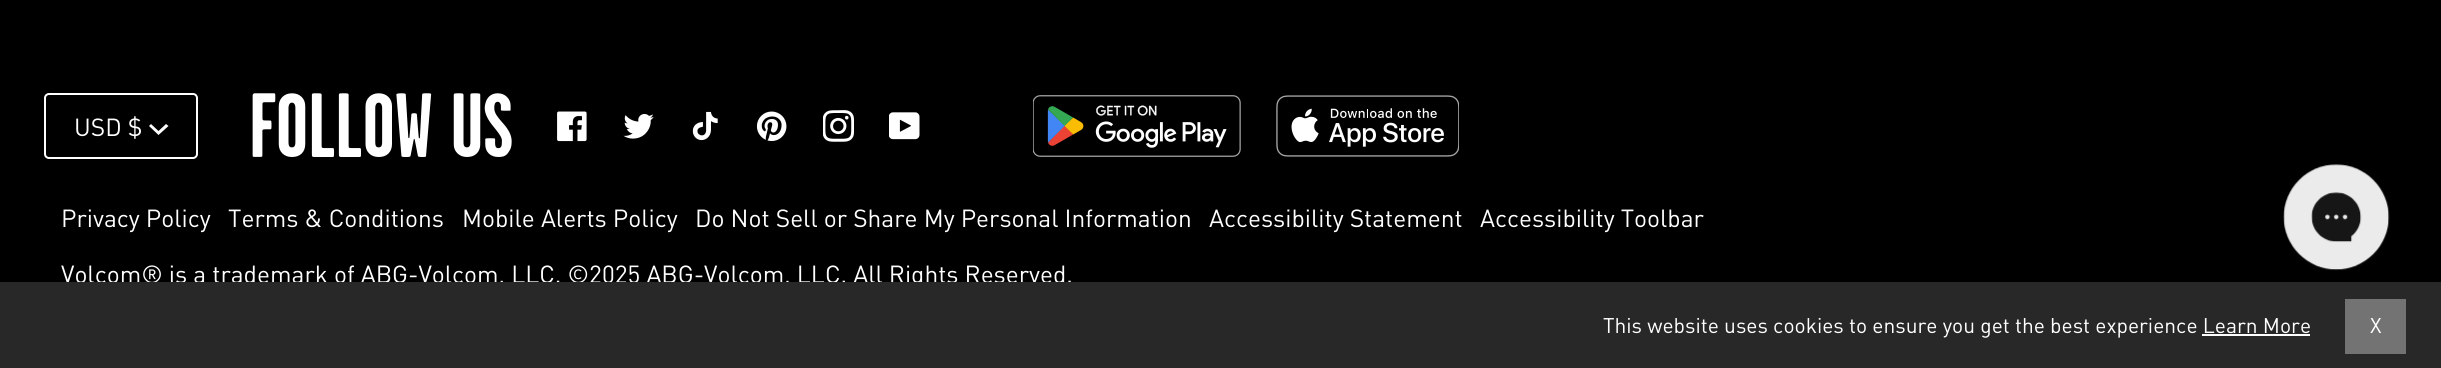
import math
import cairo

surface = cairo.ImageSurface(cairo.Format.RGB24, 2441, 368)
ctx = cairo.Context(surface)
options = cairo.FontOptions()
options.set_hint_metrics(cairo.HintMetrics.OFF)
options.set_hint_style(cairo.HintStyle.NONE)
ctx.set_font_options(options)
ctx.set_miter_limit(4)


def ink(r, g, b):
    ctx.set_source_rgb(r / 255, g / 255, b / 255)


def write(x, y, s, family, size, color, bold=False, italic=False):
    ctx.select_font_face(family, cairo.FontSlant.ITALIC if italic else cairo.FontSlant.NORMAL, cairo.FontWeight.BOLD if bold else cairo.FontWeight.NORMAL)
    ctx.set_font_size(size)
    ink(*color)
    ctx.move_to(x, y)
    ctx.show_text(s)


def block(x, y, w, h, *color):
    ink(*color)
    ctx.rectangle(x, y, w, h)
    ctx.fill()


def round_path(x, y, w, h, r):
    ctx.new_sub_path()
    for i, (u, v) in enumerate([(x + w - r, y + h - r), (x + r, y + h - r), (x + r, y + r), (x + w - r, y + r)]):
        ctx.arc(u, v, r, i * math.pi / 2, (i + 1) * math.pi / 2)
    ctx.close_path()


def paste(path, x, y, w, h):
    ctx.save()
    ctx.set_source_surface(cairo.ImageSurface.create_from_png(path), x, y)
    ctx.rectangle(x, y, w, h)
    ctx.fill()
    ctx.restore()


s1 = dict(family="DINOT", size=24.5, color=(255, 255, 255))
s2 = dict(family="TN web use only", size=91, color=(255, 255, 255), bold=True)
s3 = dict(family="DINOT", size=21, color=(255, 255, 255))

ink(0, 0, 0)
ctx.paint()
round_path(45, 94, 152, 64, 4)
ink(255, 255, 255)
ctx.stroke()
write(74, 136, "USD $", **s1)
ctx.set_fill_rule(cairo.FillRule.EVEN_ODD)
ctx.new_path()
ctx.move_to(149, 126)
ctx.line_to(151, 124)
ctx.line_to(158.5, 131)
ctx.line_to(166, 124)
ctx.line_to(168.5, 126)
ctx.line_to(158.5, 135)
ctx.close_path()
ctx.fill()
write(249, 157, "FOLLOW US", **s2)
paste("pic1.png", 557, 111, 30, 31)
paste("pic2.png", 623, 114, 31, 25)
paste("pic3.png", 692, 111, 26, 30)
paste("pic4.png", 756, 111, 31, 30)
paste("pic5.png", 823, 110, 31, 32)
paste("pic6.png", 889, 112, 31, 28)
paste("pic7.png", 1033, 95, 208, 62)
paste("pic8.png", 1276, 95, 183, 62)
write(61, 227, "Privacy Policy", **s1)
write(228, 227, "Terms & Conditions", **s1)
write(462, 227, "Mobile Alerts Policy", **s1)
write(695, 227, "Do Not Sell or Share My Personal Information", **s1)
write(1209, 227, "Accessibility Statement", **s1)
write(1480, 227, "Accessibility Toolbar", **s1)
write(61, 283, "Volcom® is a trademark of ABG-Volcom, LLC. ©2025 ABG-Volcom, LLC. All Rights Reserved.", **s1)
paste("pic9.png", 2283, 164, 107, 107)
block(0, 282, 2441, 86, 40, 40, 40)
write(1603, 333, "This website uses cookies to ensure you get the best experience Learn More", **s3)
block(2202, 334, 108, 2, 255, 255, 255)
block(2345, 299, 61, 55, 115, 115, 115)
write(2370, 333, "X", **s3)
surface.write_to_png("screenshot.png")
